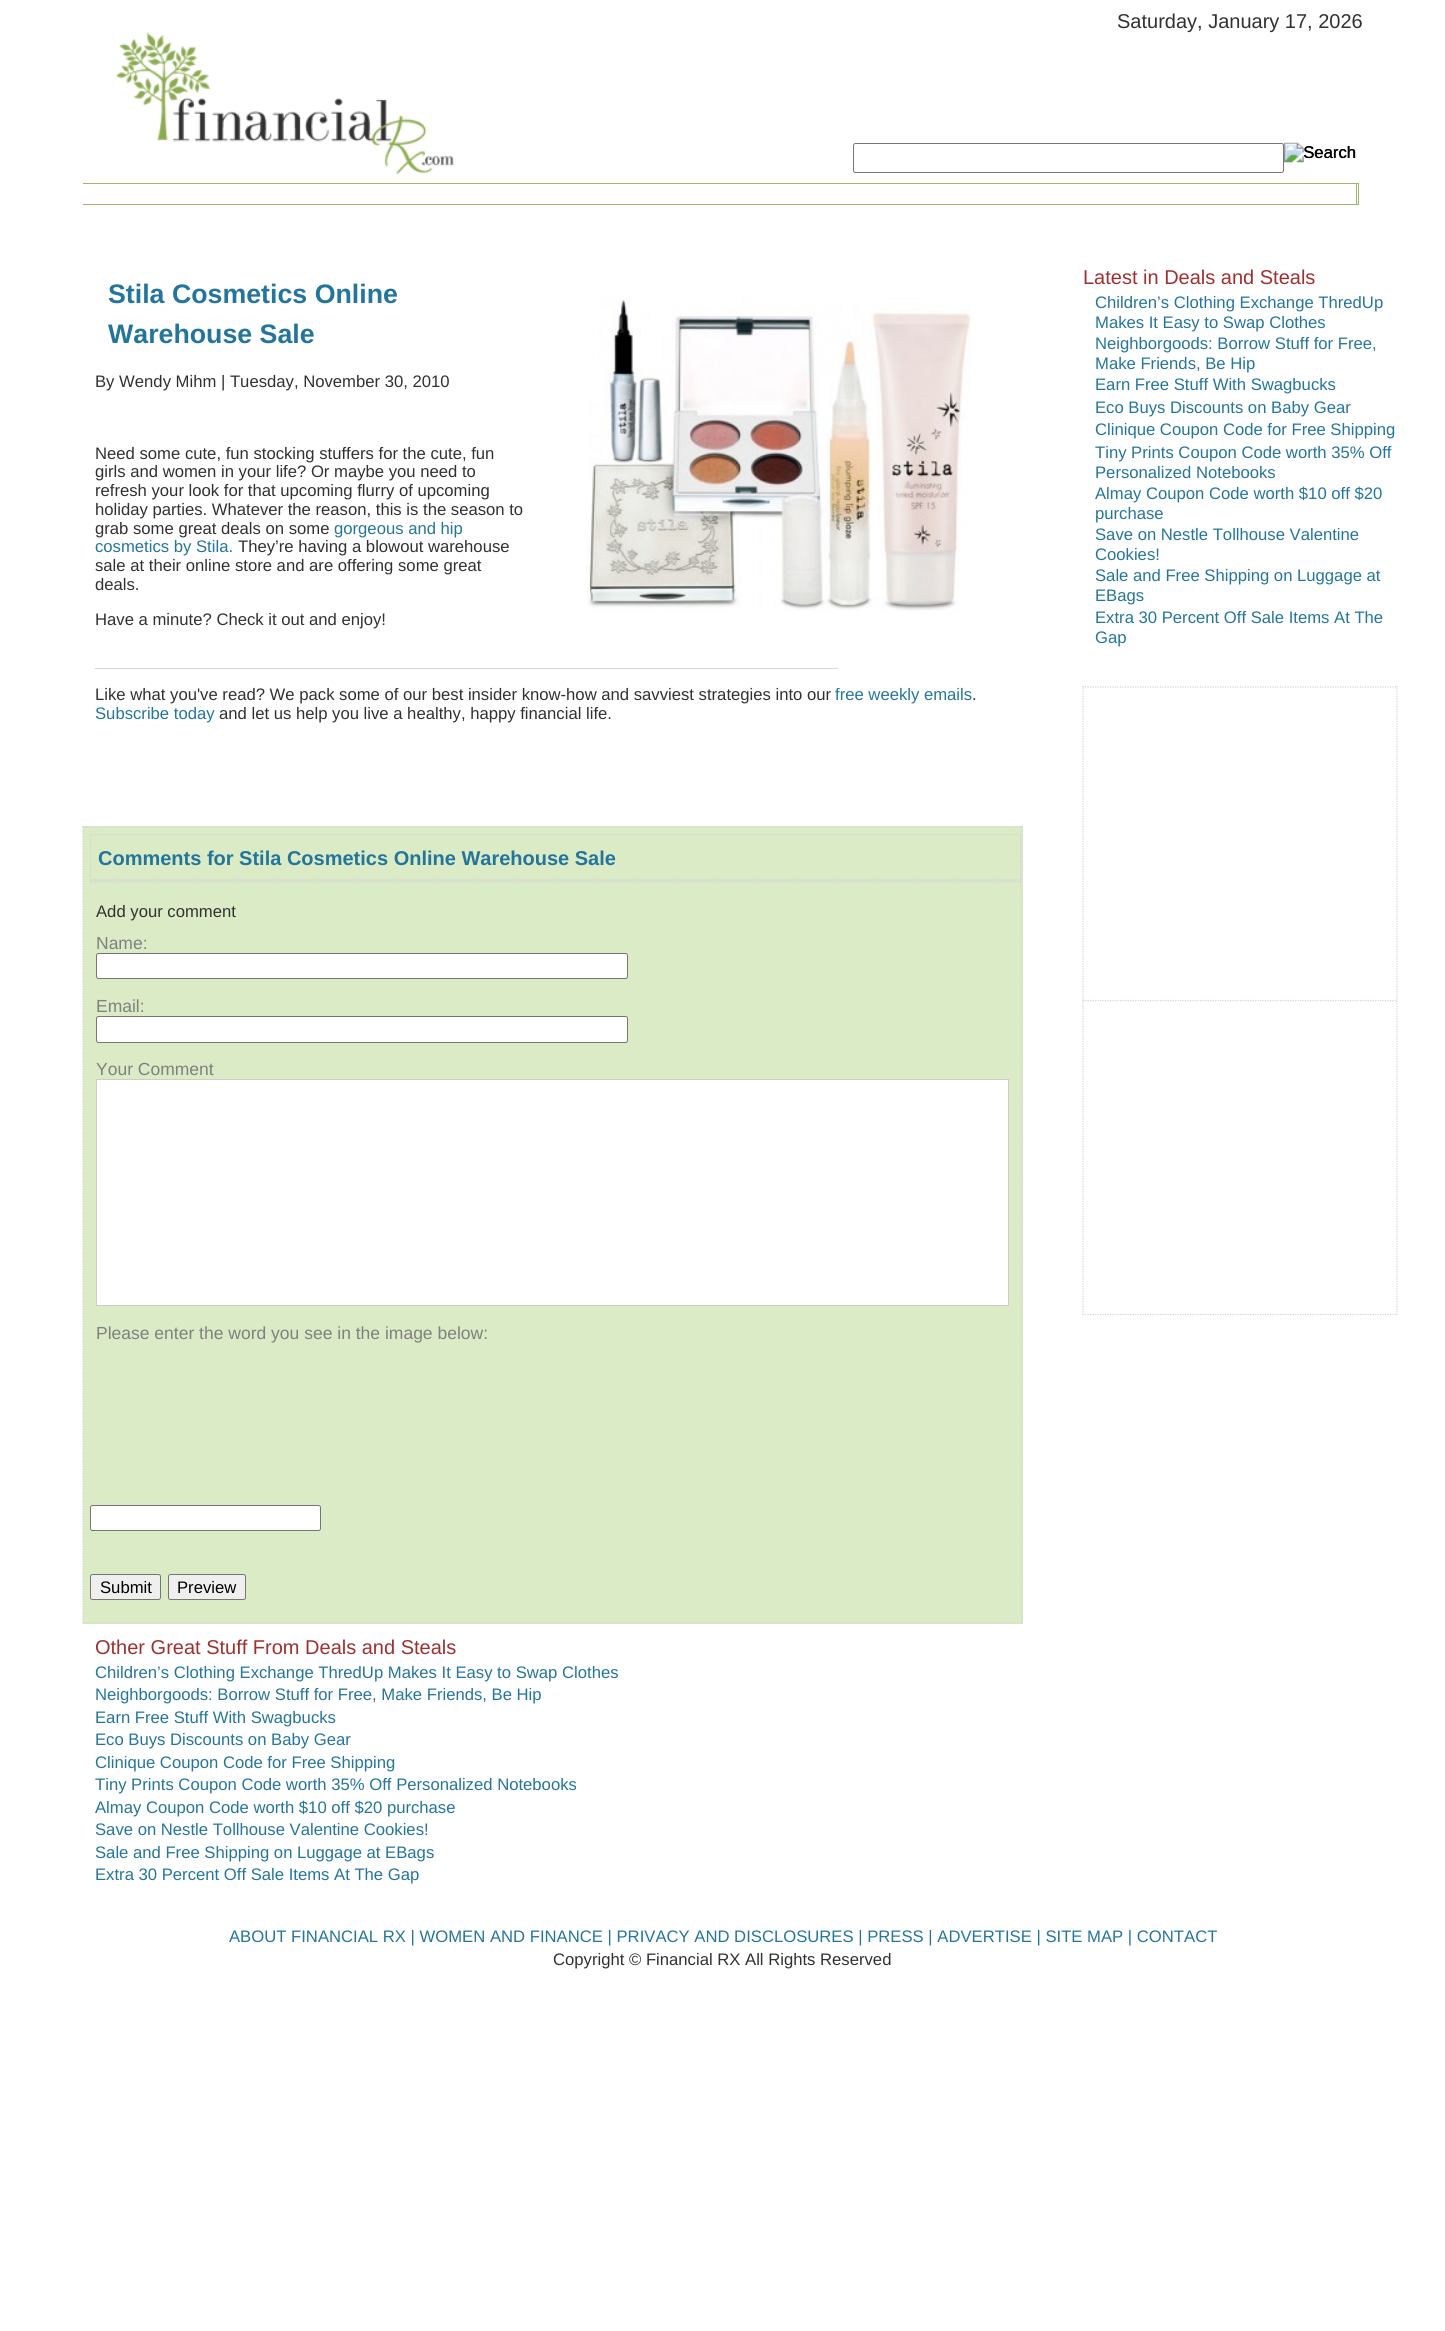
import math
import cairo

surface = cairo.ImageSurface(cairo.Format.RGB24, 1445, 2331)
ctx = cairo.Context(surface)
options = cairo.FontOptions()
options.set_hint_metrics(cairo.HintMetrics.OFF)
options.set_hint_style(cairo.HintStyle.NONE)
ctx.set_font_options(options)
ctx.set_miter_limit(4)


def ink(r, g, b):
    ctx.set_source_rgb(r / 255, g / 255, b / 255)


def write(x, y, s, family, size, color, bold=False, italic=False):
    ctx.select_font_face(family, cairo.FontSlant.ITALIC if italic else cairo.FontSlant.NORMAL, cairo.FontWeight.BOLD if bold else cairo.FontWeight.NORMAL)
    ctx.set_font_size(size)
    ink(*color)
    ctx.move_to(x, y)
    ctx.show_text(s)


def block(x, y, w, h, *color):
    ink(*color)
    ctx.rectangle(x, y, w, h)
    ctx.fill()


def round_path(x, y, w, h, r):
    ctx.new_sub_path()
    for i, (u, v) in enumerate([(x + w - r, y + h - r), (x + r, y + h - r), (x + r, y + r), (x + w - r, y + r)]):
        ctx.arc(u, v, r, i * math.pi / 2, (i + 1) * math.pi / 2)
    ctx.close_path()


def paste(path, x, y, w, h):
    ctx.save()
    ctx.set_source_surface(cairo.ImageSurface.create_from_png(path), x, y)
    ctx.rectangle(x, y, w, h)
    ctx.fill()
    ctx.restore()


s1 = dict(family="Liberation Sans", size=20, color=(50, 49, 49))
s2 = dict(family="Liberation Sans", size=16.67, color=(0, 0, 0))
s3 = dict(family="Liberation Sans", size=26.75, color=(36, 117, 155), bold=True)
s4 = dict(family="Liberation Sans", size=16.67, color=(50, 49, 49))
s5 = dict(family="Liberation Sans", size=16.67, color=(36, 117, 155))
s6 = dict(family="Liberation Sans", size=20, color=(36, 117, 155), bold=True)
s7 = dict(family="Liberation Sans", size=17.5, color=(128, 128, 128))
s8 = dict(family="Liberation Sans", size=20, color=(160, 48, 48))

ink(255, 255, 255)
ctx.paint()
write(1117, 28, "Saturday, January 17, 2026", **s1)
paste("pic1.png", 116, 32, 338, 143)
paste("pic2.png", 1283, 142, 73, 21)
ink(255, 255, 255)
round_path(853.5, 143.5, 430, 29, 2)
ctx.fill_preserve()
ink(118, 118, 118)
ctx.set_line_width(1)
ctx.stroke()
write(1303, 158, "Search", **s2)
block(83, 183, 1276, 1, 157, 184, 104)
block(1358, 183, 1, 22, 157, 184, 104)
block(83, 204, 1276, 1, 157, 184, 104)
block(1356, 184, 1, 20, 157, 184, 104)
write(108, 303, "Stila Cosmetics Online", **s3)
write(108, 343, "Warehouse Sale", **s3)
paste("pic3.png", 586, 298, 386, 313)
write(95, 387, "By Wendy Mihm | Tuesday, November 30, 2010", **s4)
write(95, 459, "Need some cute, fun stocking stuffers for the cute, fun", **s4)
write(95, 477, "girls and women in your life? Or maybe you need to", **s4)
write(95, 496, "refresh your look for that upcoming flurry of upcoming", **s4)
write(95, 515, "holiday parties. Whatever the reason, this is the season to", **s4)
write(95, 534, "grab some great deals on some", **s4)
write(334, 534, "gorgeous and hip", **s5)
write(95, 552, "cosmetics by Stila.", **s5)
write(238, 552, "They’re having a blowout warehouse", **s4)
write(95, 571, "sale at their online store and are offering some great", **s4)
write(95, 590, "deals.", **s4)
write(95, 625, "Have a minute? Check it out and enjoy!", **s4)
block(95, 668, 743, 1, 212, 212, 212)
write(95, 700, "Like what you've read? We pack some of our best insider know-how and savviest strategies into our", **s4)
write(835, 700, "free weekly emails", **s5)
write(972, 700, ".", **s4)
write(95, 719, "Subscribe today", **s5)
write(219, 719, "and let us help you live a healthy, happy financial life.", **s4)
block(83, 826, 940, 798, 218, 235, 197)
ctx.new_path()
ctx.move_to(82.5, 827)
ctx.line_to(1022.5, 827)
ink(212, 212, 212)
ctx.set_line_width(1.2)
ctx.set_dash([1.25, 1.25])
ctx.stroke()
ctx.new_path()
ctx.move_to(1022, 826)
ctx.line_to(1022, 1624)
ctx.stroke()
ctx.new_path()
ctx.move_to(82.5, 1623)
ctx.line_to(1022.5, 1623)
ctx.stroke()
ctx.new_path()
ctx.move_to(83, 826)
ctx.line_to(83, 1624)
ctx.stroke()
ctx.new_path()
ctx.move_to(90, 834.5)
ctx.line_to(1021, 834.5)
ctx.stroke()
ctx.new_path()
ctx.move_to(1020.5, 834)
ctx.line_to(1020.5, 880)
ctx.stroke()
ctx.new_path()
ctx.move_to(90, 879.5)
ctx.line_to(1021, 879.5)
ctx.stroke()
ctx.new_path()
ctx.move_to(90.5, 834)
ctx.line_to(90.5, 880)
ctx.stroke()
write(98, 865, "Comments for Stila Cosmetics Online Warehouse Sale", **s6)
ctx.new_path()
ctx.move_to(90, 880.5)
ctx.line_to(1021, 880.5)
ink(212, 212, 212)
ctx.stroke()
block(1020, 880, 1, 3, 212, 212, 212)
ctx.new_path()
ctx.move_to(90, 882)
ctx.line_to(1021, 882)
ctx.stroke()
block(90, 880, 1, 3, 212, 212, 212)
write(96, 917, "Add your comment", **s4)
write(96, 949, "Name:", **s7)
ink(255, 255, 255)
round_path(96.5, 953.5, 531, 25, 2)
ctx.fill_preserve()
ink(118, 118, 118)
ctx.set_line_width(1)
ctx.set_dash([])
ctx.stroke()
write(96, 1012, "Email:", **s7)
ink(255, 255, 255)
round_path(96.5, 1016.5, 531, 26, 2)
ctx.fill_preserve()
ink(118, 118, 118)
ctx.stroke()
write(96, 1075, "Your Comment", **s7)
ink(255, 255, 255)
ctx.rectangle(96.5, 1079.5, 912, 226)
ctx.fill_preserve()
ink(204, 204, 204)
ctx.stroke()
write(96, 1339, "Please enter the word you see in the image below:", **s7)
ink(255, 255, 255)
round_path(90.5, 1505.5, 230, 25, 2)
ctx.fill_preserve()
ink(118, 118, 118)
ctx.stroke()
ink(239, 239, 239)
round_path(90.5, 1574.5, 70, 25, 2)
ctx.fill_preserve()
ink(118, 118, 118)
ctx.stroke()
write(100, 1593, "Submit", **s2)
ink(239, 239, 239)
round_path(168.5, 1574.5, 77, 25, 2)
ctx.fill_preserve()
ink(118, 118, 118)
ctx.stroke()
write(177, 1593, "Preview", **s2)
write(95, 1654, "Other Great Stuff From Deals and Steals", **s8)
write(95, 1678, "Children’s Clothing Exchange ThredUp Makes It Easy to Swap Clothes", **s5)
write(95, 1700, "Neighborgoods: Borrow Stuff for Free, Make Friends, Be Hip", **s5)
write(95, 1723, "Earn Free Stuff With Swagbucks", **s5)
write(95, 1745, "Eco Buys Discounts on Baby Gear", **s5)
write(95, 1768, "Clinique Coupon Code for Free Shipping", **s5)
write(95, 1790, "Tiny Prints Coupon Code worth 35% Off Personalized Notebooks", **s5)
write(95, 1813, "Almay Coupon Code worth $10 off $20 purchase", **s5)
write(95, 1835, "Save on Nestle Tollhouse Valentine Cookies!", **s5)
write(95, 1858, "Sale and Free Shipping on Luggage at EBags", **s5)
write(95, 1880, "Extra 30 Percent Off Sale Items At The Gap", **s5)
write(1083, 284, "Latest in Deals and Steals", **s8)
write(1095, 308, "Children’s Clothing Exchange ThredUp", **s5)
write(1095, 328, "Makes It Easy to Swap Clothes", **s5)
write(1095, 349, "Neighborgoods: Borrow Stuff for Free,", **s5)
write(1095, 369, "Make Friends, Be Hip", **s5)
write(1095, 390, "Earn Free Stuff With Swagbucks", **s5)
write(1095, 413, "Eco Buys Discounts on Baby Gear", **s5)
write(1095, 435, "Clinique Coupon Code for Free Shipping", **s5)
write(1095, 458, "Tiny Prints Coupon Code worth 35% Off", **s5)
write(1095, 478, "Personalized Notebooks", **s5)
write(1095, 499, "Almay Coupon Code worth $10 off $20", **s5)
write(1095, 519, "purchase", **s5)
write(1095, 540, "Save on Nestle Tollhouse Valentine", **s5)
write(1095, 560, "Cookies!", **s5)
write(1095, 581, "Sale and Free Shipping on Luggage at", **s5)
write(1095, 601, "EBags", **s5)
write(1095, 623, "Extra 30 Percent Off Sale Items At The", **s5)
write(1095, 643, "Gap", **s5)
ctx.new_path()
ctx.move_to(1082.5, 687)
ctx.line_to(1397.5, 687)
ink(212, 212, 212)
ctx.set_line_width(1.2)
ctx.set_dash([1.25, 1.25])
ctx.stroke()
ctx.new_path()
ctx.move_to(1397, 686)
ctx.line_to(1397, 1001)
ctx.stroke()
ctx.new_path()
ctx.move_to(1082.5, 1000.5)
ctx.line_to(1397.5, 1000.5)
ctx.stroke()
ctx.new_path()
ctx.move_to(1083, 686)
ctx.line_to(1083, 1001)
ctx.stroke()
ctx.new_path()
ctx.move_to(1397, 1001)
ctx.line_to(1397, 1315)
ctx.stroke()
ctx.new_path()
ctx.move_to(1082.5, 1314.5)
ctx.line_to(1397.5, 1314.5)
ctx.stroke()
ctx.new_path()
ctx.move_to(1083, 1001)
ctx.line_to(1083, 1315)
ctx.stroke()
write(229, 1942, "ABOUT FINANCIAL RX | WOMEN AND FINANCE | PRIVACY AND DISCLOSURES | PRESS | ADVERTISE | SITE MAP | CONTACT", **s5)
write(553, 1965, "Copyright © Financial RX All Rights Reserved", **s4)
surface.write_to_png("screenshot.png")
